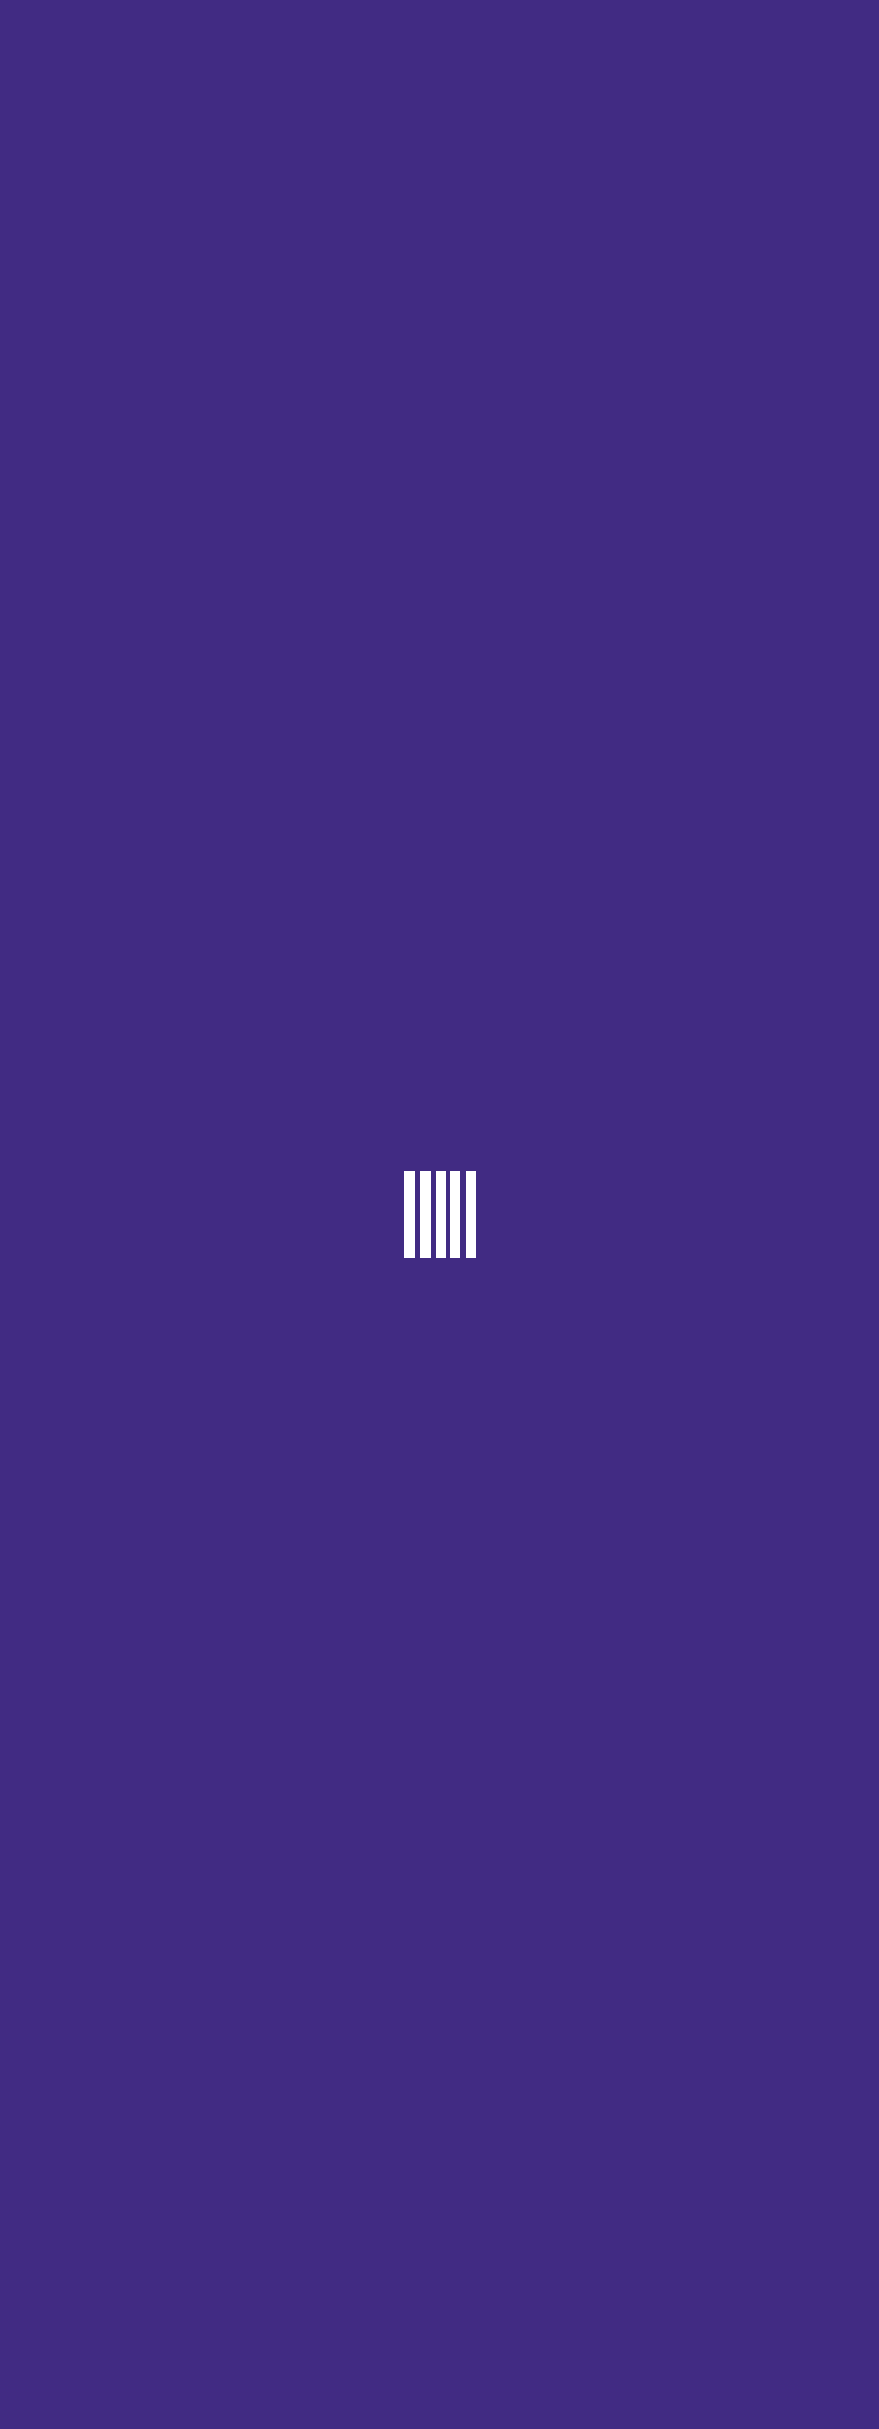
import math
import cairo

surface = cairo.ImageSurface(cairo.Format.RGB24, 879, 2429)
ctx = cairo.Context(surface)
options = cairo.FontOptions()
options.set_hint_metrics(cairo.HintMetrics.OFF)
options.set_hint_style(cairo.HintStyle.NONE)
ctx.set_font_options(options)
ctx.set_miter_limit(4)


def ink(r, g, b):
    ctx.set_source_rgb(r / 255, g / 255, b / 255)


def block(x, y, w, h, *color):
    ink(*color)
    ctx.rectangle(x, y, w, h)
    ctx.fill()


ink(65, 43, 131)
ctx.paint()
block(404, 1171, 11, 87, 255, 255, 255)
block(420, 1171, 11, 87, 255, 255, 255)
block(436, 1171, 10, 87, 255, 255, 255)
block(450, 1171, 10, 87, 255, 255, 255)
block(466, 1171, 10, 87, 255, 255, 255)
surface.write_to_png("screenshot.png")
